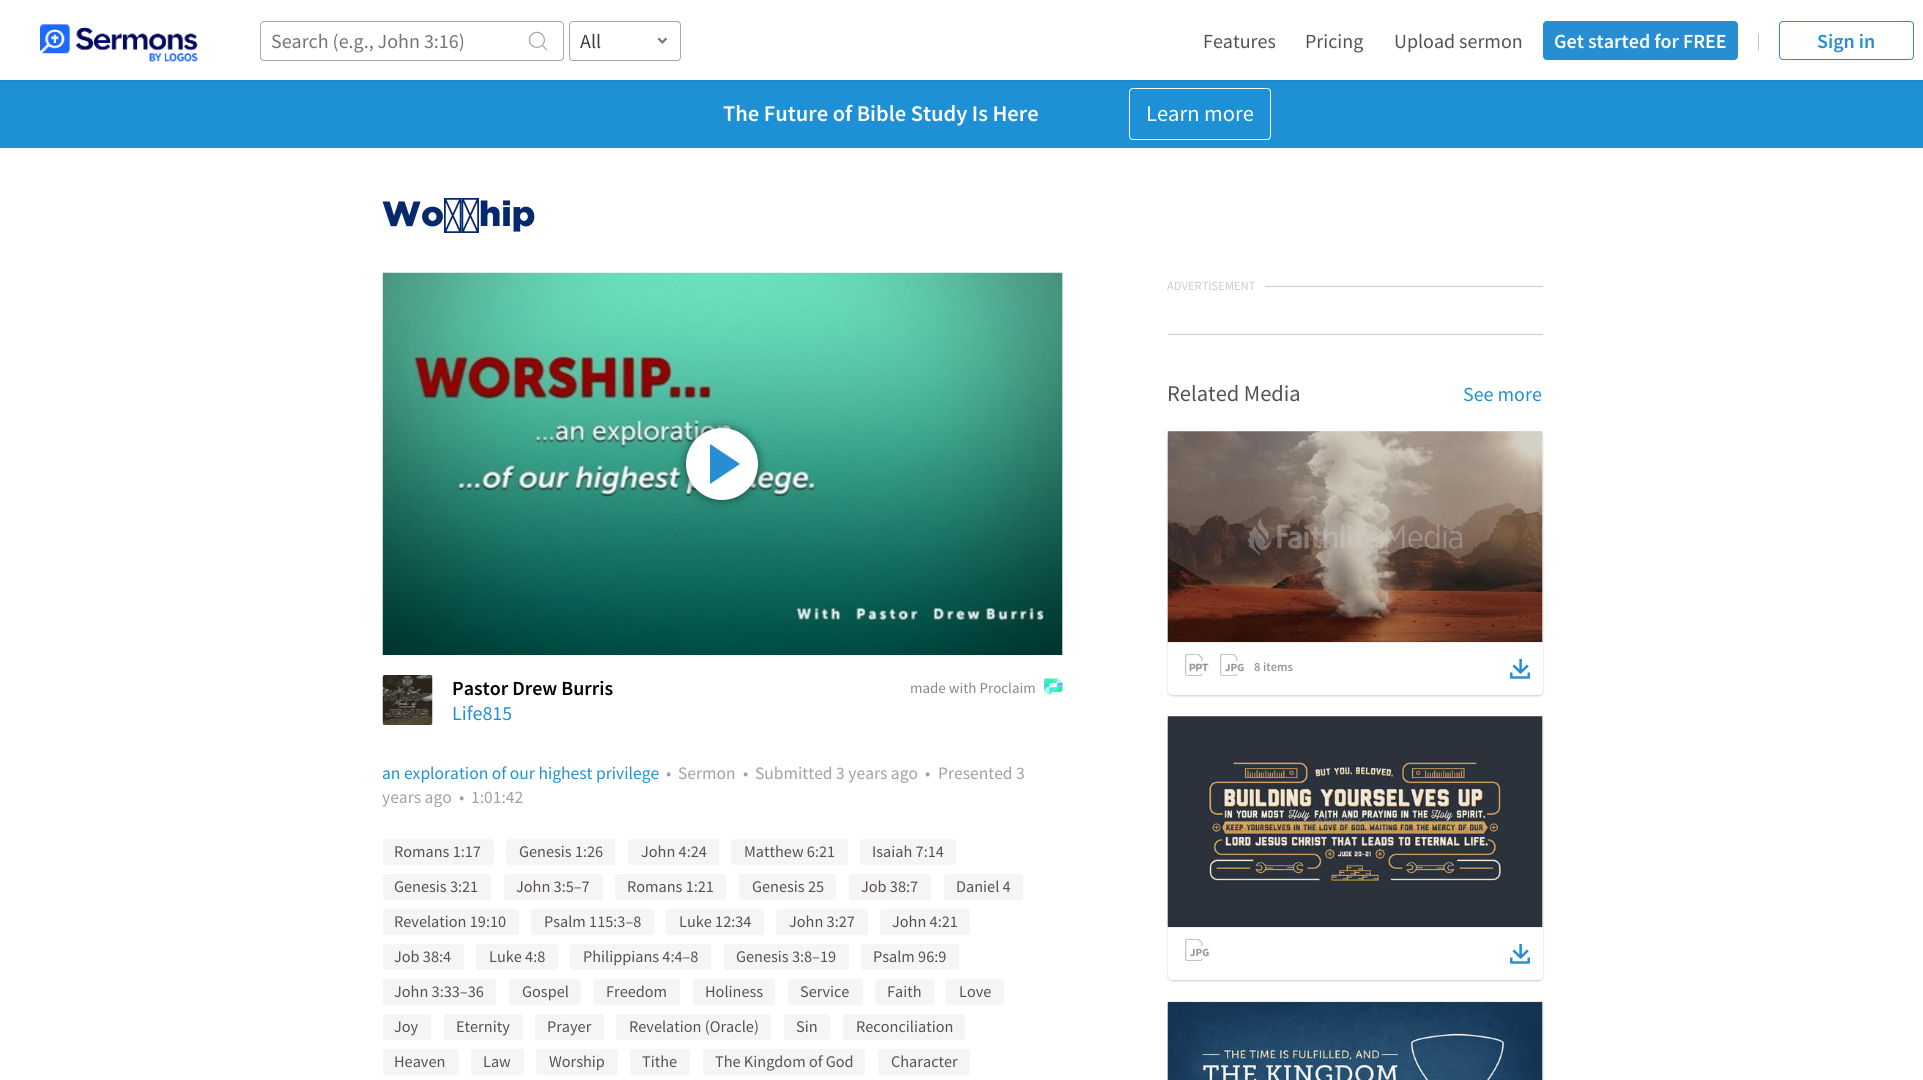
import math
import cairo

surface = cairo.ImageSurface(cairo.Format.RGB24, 1923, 1080)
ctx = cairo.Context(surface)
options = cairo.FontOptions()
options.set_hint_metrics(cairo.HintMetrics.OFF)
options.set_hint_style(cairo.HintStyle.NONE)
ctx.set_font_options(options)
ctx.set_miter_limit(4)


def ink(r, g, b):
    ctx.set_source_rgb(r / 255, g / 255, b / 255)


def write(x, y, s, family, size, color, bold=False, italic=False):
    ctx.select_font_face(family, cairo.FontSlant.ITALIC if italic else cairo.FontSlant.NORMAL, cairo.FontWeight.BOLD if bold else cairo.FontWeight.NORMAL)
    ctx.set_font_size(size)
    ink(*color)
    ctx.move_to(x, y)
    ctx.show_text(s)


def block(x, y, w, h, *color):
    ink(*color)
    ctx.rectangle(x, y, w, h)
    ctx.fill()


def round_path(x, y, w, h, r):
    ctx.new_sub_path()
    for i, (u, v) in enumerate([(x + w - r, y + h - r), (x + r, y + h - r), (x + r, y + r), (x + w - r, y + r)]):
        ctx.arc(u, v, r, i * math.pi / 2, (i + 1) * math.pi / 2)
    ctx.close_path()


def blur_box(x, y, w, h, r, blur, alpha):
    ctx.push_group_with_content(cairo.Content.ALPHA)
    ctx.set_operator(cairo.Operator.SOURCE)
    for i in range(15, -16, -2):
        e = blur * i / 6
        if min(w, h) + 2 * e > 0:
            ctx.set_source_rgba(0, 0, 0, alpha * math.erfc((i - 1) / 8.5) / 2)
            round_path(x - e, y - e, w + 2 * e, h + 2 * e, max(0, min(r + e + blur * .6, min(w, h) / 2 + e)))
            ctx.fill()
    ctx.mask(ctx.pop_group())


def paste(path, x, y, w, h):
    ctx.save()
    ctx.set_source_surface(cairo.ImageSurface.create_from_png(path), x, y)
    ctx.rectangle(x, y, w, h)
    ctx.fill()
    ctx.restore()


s1 = dict(family="Source Sans Pro", size=20, color=(117, 117, 117))
s2 = dict(family="Source Sans Pro", size=20, color=(61, 61, 61))
s3 = dict(family="Source Sans Pro", size=20, color=(87, 82, 81))
s4 = dict(family="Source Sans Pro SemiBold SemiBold", size=20, color=(255, 255, 255))
s5 = dict(family="Source Sans Pro SemiBold SemiBold", size=20, color=(39, 142, 212))
s6 = dict(family="Source Sans Pro SemiBold SemiBold", size=22.5, color=(255, 255, 255))
s7 = dict(family="Source Sans Pro", size=22.5, color=(255, 255, 255))
s8 = dict(family="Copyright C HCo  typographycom", size=35, color=(6, 41, 108))
s9 = dict(family="Source Sans Pro", size=12.5, color=(204, 204, 204))
s10 = dict(family="Source Sans Pro", size=22.5, color=(87, 82, 81))
s11 = dict(family="Source Sans Pro", size=20, color=(30, 145, 214))
s12 = dict(family="Source Sans Pro SemiBold SemiBold", size=12.5, color=(151, 151, 151))
s13 = dict(family="Source Sans Pro SemiBold SemiBold", size=20, color=(0, 0, 0))
s14 = dict(family="Source Sans Pro", size=15, color=(136, 136, 136))
s15 = dict(family="Source Sans Pro", size=17.5, color=(30, 145, 214))
s16 = dict(family="Source Sans Pro", size=17.5, color=(161, 161, 161))
s17 = dict(family="Source Sans Pro", size=16.25, color=(87, 82, 81))

ink(255, 255, 255)
ctx.paint()
block(0, 80, 1923, 68, 30, 145, 214)
ctx.save()
ctx.rectangle(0, 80, 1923, 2)
ctx.clip()
ink(0, 0, 0)
blur_box(0, 1, 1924, 80, 0, 1, 0.1)
ctx.restore()
paste("pic1.png", 40, 24, 158, 38)
round_path(260.5, 21.5, 303, 39, 3.5)
ink(168, 168, 168)
ctx.set_line_width(1)
ctx.stroke()
write(271, 48, "Search (e.g., John 3:16)", **s1)
paste("pic2.png", 528, 31, 20, 20)
round_path(569.5, 21.5, 111, 39, 3.5)
ink(168, 168, 168)
ctx.stroke()
write(580, 48, "All", **s2)
paste("pic3.png", 657, 37, 11, 7)
write(1203, 48, "Features", **s3)
write(1305, 48, "Pricing", **s3)
write(1394, 48, "Upload sermon", **s3)
ink(39, 142, 212)
round_path(1543.5, 21.5, 194, 38, 3.5)
ctx.fill_preserve()
ctx.stroke()
write(1554, 48, "Get started for FREE", **s4)
block(1758, 33, 1, 17, 199, 199, 199)
round_path(1779.5, 21.5, 134, 38, 3.5)
ink(39, 142, 212)
ctx.stroke()
write(1817, 48, "Sign in", **s5)
write(723, 121, "The Future of Bible Study Is Here", **s6)
round_path(1129.5, 88.5, 141, 51, 3.5)
ctx.stroke()
write(1146, 121, "Learn more", **s7)
write(382, 226, "Worship", **s8)
block(1168, 334, 375, 1, 204, 204, 204)
write(1167, 290, "ADVERTISEMENT", **s9)
block(1265, 286, 278, 1, 204, 204, 204)
write(1167, 401, "Related Media", **s10)
write(1463, 401, "See more", **s11)
ink(0, 0, 0)
blur_box(1168, 433, 375, 263, 5, 1, 0.2)
ink(255, 255, 255)
ctx.new_path()
ctx.move_to(1168, 431)
ctx.line_to(1543, 431)
ctx.line_to(1543, 690)
ctx.curve_to(1543, 693, 1541, 695, 1538, 695)
ctx.line_to(1173, 695)
ctx.curve_to(1170, 695, 1168, 693, 1168, 690)
ctx.close_path()
ctx.fill()
block(1168, 431, 375, 212, 238, 238, 238)
paste("pic4.png", 1167, 431, 376, 211)
paste("pic5.png", 1185, 654, 24, 23)
paste("pic6.png", 1220, 654, 24, 22)
write(1254, 671, "8 items", **s12)
paste("pic7.png", 1510, 659, 20, 20)
ink(0, 0, 0)
blur_box(1168, 718, 375, 263, 5, 1, 0.2)
ink(255, 255, 255)
ctx.new_path()
ctx.move_to(1168, 716)
ctx.line_to(1543, 716)
ctx.line_to(1543, 975)
ctx.curve_to(1543, 978, 1541, 980, 1538, 980)
ctx.line_to(1173, 980)
ctx.curve_to(1170, 980, 1168, 978, 1168, 975)
ctx.close_path()
ctx.fill()
block(1168, 716, 375, 212, 238, 238, 238)
paste("pic8.png", 1167, 716, 376, 211)
paste("pic6.png", 1185, 939, 24, 22)
paste("pic7.png", 1510, 944, 20, 20)
ink(0, 0, 0)
blur_box(1168, 1003, 375, 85, 5, 1, 0.2)
block(1168, 1001, 375, 79, 238, 238, 238)
paste("pic9.png", 1167, 1002, 376, 78)
block(1062, 273, 1, 382, 238, 238, 238)
paste("pic10.png", 382, 272, 681, 383)
ink(0, 0, 0)
blur_box(686, 428, 72, 72, 36, 5, 0.5)
ink(255, 255, 255)
ctx.arc(722, 464, 36, 0, 2 * math.pi)
ctx.fill()
ink(39, 142, 212)
ctx.new_path()
ctx.move_to(740, 464)
ctx.line_to(710, 484)
ctx.line_to(710, 444)
ctx.close_path()
ctx.fill()
paste("pic11.png", 382, 675, 51, 50)
write(452, 695, "Pastor Drew Burris", **s13)
write(452, 720, "Life815", **s11)
write(910, 693, "made with Proclaim", **s14)
paste("pic12.png", 1044, 678, 19, 18)
write(382, 779, "an exploration of our highest privilege", **s15)
write(666, 779, "•", **s16)
write(678, 779, "Sermon", **s16)
write(743, 779, "•", **s16)
write(755, 779, "Submitted 3 years ago", **s16)
write(925, 779, "•", **s16)
write(938, 779, "Presented 3", **s16)
write(382, 803, "years ago", **s16)
write(459, 803, "•", **s16)
write(471, 803, "1:01:42", **s16)
ink(245, 245, 245)
round_path(383, 839, 111, 26, 2.5)
ctx.fill()
write(394, 857, "Romans 1:17", **s17)
ink(245, 245, 245)
round_path(506, 839, 109, 26, 2.5)
ctx.fill()
write(519, 857, "Genesis 1:26", **s17)
ink(245, 245, 245)
round_path(628, 839, 91, 26, 2.5)
ctx.fill()
write(641, 857, "John 4:24", **s17)
ink(245, 245, 245)
round_path(731, 839, 117, 26, 2.5)
ctx.fill()
write(744, 857, "Matthew 6:21", **s17)
ink(245, 245, 245)
round_path(860, 839, 96, 26, 2.5)
ctx.fill()
write(872, 857, "Isaiah 7:14", **s17)
ink(245, 245, 245)
round_path(383, 874, 108, 26, 2.5)
ctx.fill()
write(394, 892, "Genesis 3:21", **s17)
ink(245, 245, 245)
round_path(504, 874, 99, 26, 2.5)
ctx.fill()
write(516, 892, "John 3:5–7", **s17)
ink(245, 245, 245)
round_path(615, 874, 111, 26, 2.5)
ctx.fill()
write(627, 892, "Romans 1:21", **s17)
ink(245, 245, 245)
round_path(739, 874, 97, 26, 2.5)
ctx.fill()
write(752, 892, "Genesis 25", **s17)
ink(245, 245, 245)
round_path(849, 874, 82, 26, 2.5)
ctx.fill()
write(861, 892, "Job 38:7", **s17)
ink(245, 245, 245)
round_path(944, 874, 79, 26, 2.5)
ctx.fill()
write(956, 892, "Daniel 4", **s17)
ink(245, 245, 245)
round_path(383, 909, 136, 26, 2.5)
ctx.fill()
write(394, 927, "Revelation 19:10", **s17)
ink(245, 245, 245)
round_path(531, 909, 123, 26, 2.5)
ctx.fill()
write(544, 927, "Psalm 115:3–8", **s17)
ink(245, 245, 245)
round_path(666, 909, 98, 26, 2.5)
ctx.fill()
write(679, 927, "Luke 12:34", **s17)
ink(245, 245, 245)
round_path(776, 909, 92, 26, 2.5)
ctx.fill()
write(789, 927, "John 3:27", **s17)
ink(245, 245, 245)
round_path(880, 909, 90, 26, 2.5)
ctx.fill()
write(892, 927, "John 4:21", **s17)
ink(245, 245, 245)
round_path(383, 944, 81, 26, 2.5)
ctx.fill()
write(394, 962, "Job 38:4", **s17)
ink(245, 245, 245)
round_path(476, 944, 82, 26, 2.5)
ctx.fill()
write(489, 962, "Luke 4:8", **s17)
ink(245, 245, 245)
round_path(570, 944, 141, 26, 2.5)
ctx.fill()
write(583, 962, "Philippians 4:4–8", **s17)
ink(245, 245, 245)
round_path(724, 944, 125, 26, 2.5)
ctx.fill()
write(736, 962, "Genesis 3:8–19", **s17)
ink(245, 245, 245)
round_path(861, 944, 98, 26, 2.5)
ctx.fill()
write(873, 962, "Psalm 96:9", **s17)
ink(245, 245, 245)
round_path(383, 979, 113, 26, 2.5)
ctx.fill()
write(394, 997, "John 3:33–36", **s17)
ink(245, 245, 245)
round_path(509, 979, 72, 26, 2.5)
ctx.fill()
write(522, 997, "Gospel", **s17)
ink(245, 245, 245)
round_path(594, 979, 86, 26, 2.5)
ctx.fill()
write(606, 997, "Freedom", **s17)
ink(245, 245, 245)
round_path(693, 979, 82, 26, 2.5)
ctx.fill()
write(705, 997, "Holiness", **s17)
ink(245, 245, 245)
round_path(788, 979, 75, 26, 2.5)
ctx.fill()
write(800, 997, "Service", **s17)
ink(245, 245, 245)
round_path(875, 979, 59, 26, 2.5)
ctx.fill()
write(887, 997, "Faith", **s17)
ink(245, 245, 245)
round_path(946, 979, 58, 26, 2.5)
ctx.fill()
write(959, 997, "Love", **s17)
ink(245, 245, 245)
round_path(383, 1014, 48, 26, 2.5)
ctx.fill()
write(394, 1032, "Joy", **s17)
ink(245, 245, 245)
round_path(444, 1014, 79, 26, 2.5)
ctx.fill()
write(456, 1032, "Eternity", **s17)
ink(245, 245, 245)
round_path(535, 1014, 69, 26, 2.5)
ctx.fill()
write(547, 1032, "Prayer", **s17)
ink(245, 245, 245)
round_path(616, 1014, 155, 26, 2.5)
ctx.fill()
write(629, 1032, "Revelation (Oracle)", **s17)
ink(245, 245, 245)
round_path(784, 1014, 46, 26, 2.5)
ctx.fill()
write(796, 1032, "Sin", **s17)
ink(245, 245, 245)
round_path(843, 1014, 122, 26, 2.5)
ctx.fill()
write(856, 1032, "Reconciliation", **s17)
ink(245, 245, 245)
round_path(383, 1049, 76, 26, 2.5)
ctx.fill()
write(394, 1067, "Heaven", **s17)
ink(245, 245, 245)
round_path(471, 1049, 53, 26, 2.5)
ctx.fill()
write(483, 1067, "Law", **s17)
ink(245, 245, 245)
round_path(536, 1049, 82, 26, 2.5)
ctx.fill()
write(549, 1067, "Worship", **s17)
ink(245, 245, 245)
round_path(630, 1049, 60, 26, 2.5)
ctx.fill()
write(642, 1067, "Tithe", **s17)
ink(245, 245, 245)
round_path(703, 1049, 162, 26, 2.5)
ctx.fill()
write(715, 1067, "The Kingdom of God", **s17)
ink(245, 245, 245)
round_path(878, 1049, 92, 26, 2.5)
ctx.fill()
write(891, 1067, "Character", **s17)
surface.write_to_png("screenshot.png")
